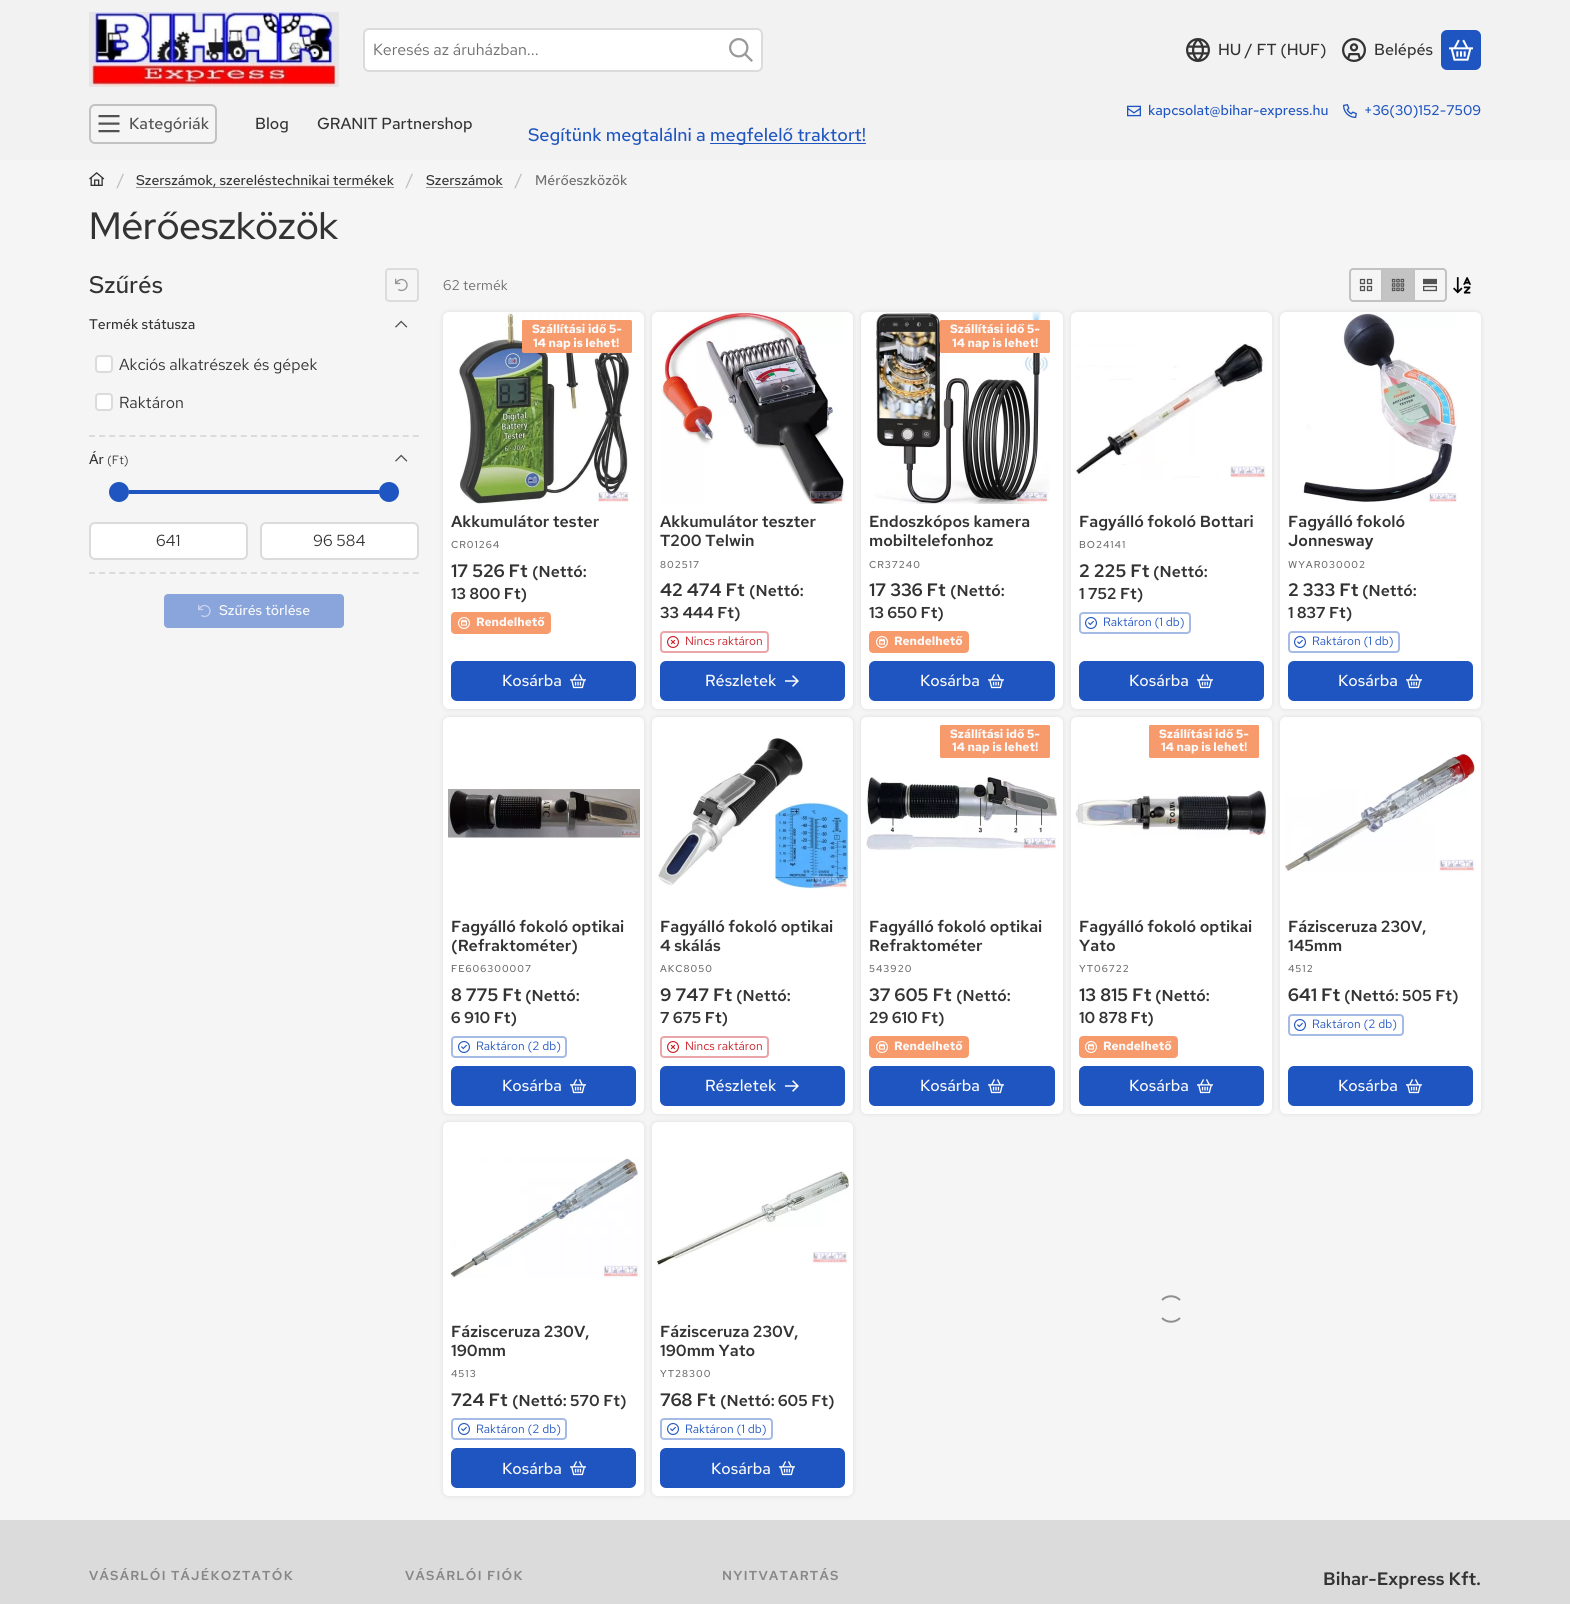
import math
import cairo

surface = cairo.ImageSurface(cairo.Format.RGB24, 1570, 1604)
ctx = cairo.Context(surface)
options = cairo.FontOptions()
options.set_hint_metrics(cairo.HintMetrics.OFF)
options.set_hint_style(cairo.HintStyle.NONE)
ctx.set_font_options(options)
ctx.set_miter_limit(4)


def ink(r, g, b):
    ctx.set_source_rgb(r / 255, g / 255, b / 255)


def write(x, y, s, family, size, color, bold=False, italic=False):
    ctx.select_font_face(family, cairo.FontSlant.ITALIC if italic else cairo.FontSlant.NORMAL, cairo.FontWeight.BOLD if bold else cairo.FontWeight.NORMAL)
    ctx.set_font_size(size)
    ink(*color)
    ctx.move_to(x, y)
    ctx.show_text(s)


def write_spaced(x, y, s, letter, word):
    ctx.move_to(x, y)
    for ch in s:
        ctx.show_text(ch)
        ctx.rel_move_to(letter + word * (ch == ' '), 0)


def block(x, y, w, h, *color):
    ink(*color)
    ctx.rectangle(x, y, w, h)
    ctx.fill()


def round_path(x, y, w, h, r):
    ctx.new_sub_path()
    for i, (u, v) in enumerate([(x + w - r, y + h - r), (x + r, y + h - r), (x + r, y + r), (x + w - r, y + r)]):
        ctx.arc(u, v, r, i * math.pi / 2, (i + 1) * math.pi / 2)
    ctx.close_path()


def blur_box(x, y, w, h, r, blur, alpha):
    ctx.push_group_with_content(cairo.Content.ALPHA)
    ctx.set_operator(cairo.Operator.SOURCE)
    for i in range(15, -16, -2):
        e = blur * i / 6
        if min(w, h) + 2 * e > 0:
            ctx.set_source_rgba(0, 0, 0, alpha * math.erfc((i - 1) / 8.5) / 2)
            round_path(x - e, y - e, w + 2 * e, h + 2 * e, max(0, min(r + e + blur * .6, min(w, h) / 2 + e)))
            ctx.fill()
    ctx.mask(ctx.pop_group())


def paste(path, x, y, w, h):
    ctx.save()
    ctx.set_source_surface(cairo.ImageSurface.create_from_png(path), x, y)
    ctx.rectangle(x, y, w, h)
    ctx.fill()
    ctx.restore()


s1 = dict(family="Red Hat Text", size=16, color=(109, 109, 109))
s2 = dict(family="Red Hat Text Medium", size=16, color=(51, 51, 51))
s3 = dict(family="Red Hat Text Medium", size=16, color=(82, 82, 82))
s4 = dict(family="Red Hat Text Medium", size=14, color=(31, 85, 192))
s5 = dict(family="Red Hat Text Medium", size=18, color=(31, 85, 192))
s6 = dict(family="Red Hat Text Medium", size=16, color=(194, 194, 194))
s7 = dict(family="Red Hat Text Medium", size=14, color=(51, 51, 51))
s8 = dict(family="Red Hat Text Medium", size=14, color=(109, 109, 109))
s9 = dict(family="Red Hat Display Medium", size=38, color=(51, 51, 51))
s10 = dict(family="Red Hat Text Medium", size=24, color=(51, 51, 51))
s11 = dict(family="Red Hat Text", size=16, color=(51, 51, 51))
s12 = dict(family="Red Hat Text", size=12, color=(51, 51, 51))
s13 = dict(family="Red Hat Text Medium", size=14, color=(250, 250, 250))
s14 = dict(family="Red Hat Text", size=14, color=(109, 109, 109))
s15 = dict(family="Red Hat Text", size=12, color=(250, 250, 250), bold=True)
s16 = dict(family="Red Hat Text SemiBold", size=16, color=(51, 51, 51))
s17 = dict(family="Red Hat Text SemiBold", size=18, color=(51, 51, 51))
s18 = dict(family="Red Hat Text SemiBold", size=15.75, color=(51, 51, 51))
s19 = dict(family="Red Hat Text Medium", size=16, color=(250, 250, 250))
s20 = dict(family="Red Hat Text", size=12, color=(201, 29, 37))
s21 = dict(family="Red Hat Text", size=12, color=(31, 85, 192))

ink(245, 245, 245)
ctx.paint()
block(0, 0, 1570, 160, 242, 242, 242)
paste("pic1.png", 89, 12, 250, 75)
ink(255, 255, 255)
round_path(364, 29, 398, 42, 5)
ctx.fill_preserve()
ink(219, 219, 219)
ctx.stroke()
write(373, 55, "Keresés az áruházban...", **s1)
paste("pic2.png", 729, 38, 24, 24)
paste("pic3.png", 1186, 38, 24, 24)
write(1218, 55, "HU / FT (HUF)", **s2)
paste("pic4.png", 1342, 38, 24, 24)
write(1374, 55, "Belépés", **s2)
ink(31, 85, 192)
round_path(1442, 31, 38, 38, 5)
ctx.fill_preserve()
ctx.stroke()
paste("pic5.png", 1449, 39, 24, 22)
ink(245, 245, 245)
round_path(90, 105, 126, 38, 5)
ctx.fill_preserve()
ink(194, 194, 194)
ctx.stroke()
paste("pic6.png", 98, 115, 22, 18)
write(129, 129, "Kategóriák", **s3)
write(255, 129, "Blog", **s2)
write(317, 129, "GRANIT Partnershop", **s2)
paste("pic7.png", 1127, 105, 14, 12)
write(1148, 115, "kapcsolat@bihar-express.hu", **s4)
paste("pic8.png", 1343, 104, 14, 14)
write(1364, 115, "+36(30)152-7509", **s4)
write(528, 141, "Segítünk megtalálni a", **s5)
block(710, 143, 156, 1, 31, 85, 192)
write(710, 141, "megfelelő traktort!", **s5)
paste("pic9.png", 89, 172, 16, 14)
write(117, 185, "/", **s6)
block(136, 187, 258, 1, 148, 148, 148)
write(136, 185, "Szerszámok, szereléstechnikai termékek", **s7)
write(406, 185, "/", **s6)
write(426, 185, "Szerszámok", **s7)
block(426, 187, 77, 1, 148, 148, 148)
write(515, 185, "/", **s6)
write(535, 185, "Mérőeszközök", **s8)
write(89, 239, "Mérőeszközök", **s9)
write(89, 293, "Szűrés", **s10)
round_path(386, 269, 32, 32, 3)
ink(220, 220, 220)
ctx.stroke()
paste("pic10.png", 395, 278, 13, 14)
write(89, 329, "Termék státusza", **s7)
paste("pic11.png", 395, 320, 13, 8)
ink(255, 255, 255)
round_path(96, 356, 16, 16, 3)
ctx.fill_preserve()
ink(219, 219, 219)
ctx.stroke()
write(119, 370, "Akciós alkatrészek és gépek", **s11)
ink(255, 255, 255)
round_path(96, 394, 16, 16, 3)
ctx.fill_preserve()
ink(219, 219, 219)
ctx.stroke()
write(119, 408, "Raktáron", **s11)
ctx.new_path()
ctx.move_to(89, 436)
ctx.line_to(419, 436)
ink(219, 219, 219)
ctx.set_dash([6, 4.12])
ctx.stroke()
write(89, 464, "Ár", **s7)
write(107, 464, "(Ft)", **s12)
paste("pic11.png", 395, 454, 13, 8)
ink(31, 85, 192)
ctx.arc(119, 492, 9, 0, 2 * math.pi)
ctx.fill_preserve()
ctx.set_dash([])
ctx.stroke()
block(129, 490, 250, 4, 31, 85, 192)
ctx.arc(389, 492, 9, 0, 2 * math.pi)
ctx.fill_preserve()
ctx.stroke()
ink(255, 255, 255)
round_path(90, 523, 157, 36, 5)
ctx.fill_preserve()
ink(219, 219, 219)
ctx.stroke()
write(156, 546, "641", **s11)
ink(255, 255, 255)
round_path(261, 523, 157, 36, 5)
ctx.fill_preserve()
ink(219, 219, 219)
ctx.stroke()
write(313, 546, "96 584", **s11)
ctx.new_path()
ctx.move_to(89, 573)
ctx.line_to(419, 573)
ink(219, 219, 219)
ctx.set_dash([6, 4.12])
ctx.stroke()
ink(138, 165, 219)
round_path(165, 595, 178, 32, 3)
ctx.fill_preserve()
ctx.set_dash([])
ctx.stroke()
paste("pic12.png", 198, 604, 13, 14)
write(219, 615, "Szűrés törlése", **s13)
write(443, 290, "62 termék", **s14)
ctx.new_path()
ctx.move_to(1353, 269)
ctx.line_to(1382, 269)
ctx.line_to(1382, 301)
ctx.line_to(1353, 301)
ctx.curve_to(1351.5, 301, 1350, 299.5, 1350, 298)
ctx.line_to(1350, 272)
ctx.curve_to(1350, 270.5, 1351.5, 269, 1353, 269)
ctx.close_path()
ink(194, 194, 194)
ctx.stroke()
paste("pic13.png", 1359, 278, 14, 14)
ctx.new_path()
ctx.move_to(1414, 269)
ctx.line_to(1443, 269)
ctx.curve_to(1444.5, 269, 1446, 270.5, 1446, 272)
ctx.line_to(1446, 298)
ctx.curve_to(1446, 299.5, 1444.5, 301, 1443, 301)
ctx.line_to(1414, 301)
ctx.close_path()
ctx.stroke()
ink(196, 196, 196)
ctx.rectangle(1382, 269, 32, 32)
ctx.fill_preserve()
ink(194, 194, 194)
ctx.stroke()
paste("pic14.png", 1391, 278, 14, 14)
paste("pic15.png", 1423, 278, 14, 14)
paste("pic16.png", 1453, 277, 19, 17)
ink(0, 0, 0)
blur_box(443, 312, 201, 397, 6, 2.5, 0.1)
ink(255, 255, 255)
round_path(443, 312, 201, 397, 6)
ctx.fill()
paste("pic17.png", 458, 312, 172, 192)
ink(247, 155, 109)
ctx.new_path()
ctx.move_to(522, 321)
ctx.line_to(523, 320)
ctx.line_to(631, 320)
ctx.line_to(632, 321)
ctx.line_to(632, 352)
ctx.line_to(631, 353)
ctx.line_to(523, 353)
ctx.line_to(522, 352)
ctx.close_path()
ctx.fill()
write(532, 333, "Szállítási idő 5-", **s15)
write(533, 347, "14 nap is lehet!", **s15)
write(451, 527, "Akkumulátor tester", **s16)
ctx.select_font_face("Red Hat Text Medium")
ctx.set_font_size(10)
ink(109, 109, 109)
write_spaced(451, 548, "CR01264", 1, 0)
write(451, 577, "17 526 Ft", **s17)
write(532, 577, "(Nettó:", **s18)
write(451, 599, "13 800 Ft)", **s18)
ink(247, 155, 109)
round_path(452, 613, 98, 20, 3)
ctx.fill_preserve()
ctx.stroke()
paste("pic18.png", 458, 617, 12, 12)
write(476, 626, "Rendelhető", **s15)
ink(31, 85, 192)
round_path(452, 662, 183, 38, 5)
ctx.fill_preserve()
ctx.stroke()
write(502, 686, "Kosárba", **s19)
paste("pic19.png", 570, 674, 16, 15)
ink(0, 0, 0)
blur_box(652, 312, 201, 397, 6, 2.5, 0.1)
ink(255, 255, 255)
round_path(652, 312, 201, 397, 6)
ctx.fill()
paste("pic20.png", 661, 312, 184, 192)
write(660, 527, "Akkumulátor teszter", **s16)
write(660, 546, "T200 Telwin", **s16)
ctx.select_font_face("Red Hat Text Medium")
ctx.set_font_size(10)
ink(109, 109, 109)
write_spaced(660, 568, "802517", 1, 0)
write(660, 596, "42 474 Ft", **s17)
write(749, 596, "(Nettó:", **s18)
write(660, 618, "33 444 Ft)", **s18)
round_path(661, 632, 107, 20, 3)
ink(233, 165, 168)
ctx.stroke()
paste("pic21.png", 667, 636, 12, 12)
write(685, 645, "Nincs raktáron", **s20)
ink(31, 85, 192)
round_path(661, 662, 183, 38, 5)
ctx.fill_preserve()
ctx.stroke()
write(705, 686, "Részletek", **s19)
paste("pic22.png", 785, 675, 14, 12)
ink(0, 0, 0)
blur_box(861, 312, 202, 397, 6, 2.5, 0.1)
ink(255, 255, 255)
round_path(861, 312, 202, 397, 6)
ctx.fill()
paste("pic23.png", 875, 312, 175, 192)
ink(247, 155, 109)
ctx.new_path()
ctx.move_to(940, 321)
ctx.line_to(941, 320)
ctx.line_to(1049, 320)
ctx.line_to(1050, 321)
ctx.line_to(1050, 352)
ctx.line_to(1049, 353)
ctx.line_to(941, 353)
ctx.line_to(940, 352)
ctx.close_path()
ctx.fill()
write(950, 333, "Szállítási idő 5-", **s15)
write(952, 347, "14 nap is lehet!", **s15)
write(869, 527, "Endoszkópos kamera", **s16)
write(869, 546, "mobiltelefonhoz", **s16)
ctx.select_font_face("Red Hat Text Medium")
ctx.set_font_size(10)
ink(109, 109, 109)
write_spaced(869, 568, "CR37240", 1, 0)
write(869, 596, "17 336 Ft", **s17)
write(950, 596, "(Nettó:", **s18)
write(869, 618, "13 650 Ft)", **s18)
ink(247, 155, 109)
round_path(870, 632, 98, 20, 3)
ctx.fill_preserve()
ctx.stroke()
paste("pic18.png", 876, 636, 12, 12)
write(894, 645, "Rendelhető", **s15)
ink(31, 85, 192)
round_path(870, 662, 184, 38, 5)
ctx.fill_preserve()
ctx.stroke()
write(920, 686, "Kosárba", **s19)
paste("pic19.png", 988, 674, 16, 15)
ink(0, 0, 0)
blur_box(1071, 312, 201, 397, 6, 2.5, 0.1)
ink(255, 255, 255)
round_path(1071, 312, 201, 397, 6)
ctx.fill()
paste("pic24.png", 1075, 343, 192, 137)
write(1079, 527, "Fagyálló fokoló Bottari", **s16)
ctx.select_font_face("Red Hat Text Medium")
ctx.set_font_size(10)
ink(109, 109, 109)
write_spaced(1079, 548, "BO24141", 1, 0)
write(1079, 577, "2 225 Ft", **s17)
write(1153, 577, "(Nettó:", **s18)
write(1079, 599, "1 752 Ft)", **s18)
round_path(1080, 613, 110, 20, 3)
ink(165, 187, 230)
ctx.stroke()
paste("pic25.png", 1085, 617, 12, 12)
write(1103, 626, "Raktáron (1 db)", **s21)
round_path(1080, 662, 183, 38, 5)
ctx.fill_preserve()
ctx.stroke()
write(1129, 686, "Kosárba", **s19)
paste("pic19.png", 1197, 674, 16, 15)
ink(0, 0, 0)
blur_box(1280, 312, 201, 397, 6, 2.5, 0.1)
ink(255, 255, 255)
round_path(1280, 312, 201, 397, 6)
ctx.fill()
paste("pic26.png", 1302, 313, 155, 190)
write(1288, 527, "Fagyálló fokoló", **s16)
write(1288, 546, "Jonnesway", **s16)
ctx.select_font_face("Red Hat Text Medium")
ctx.set_font_size(10)
ink(109, 109, 109)
write_spaced(1288, 568, "WYAR030002", 1, 0)
write(1288, 596, "2 333 Ft", **s17)
write(1362, 596, "(Nettó:", **s18)
write(1288, 618, "1 837 Ft)", **s18)
round_path(1289, 632, 110, 20, 3)
ink(165, 187, 230)
ctx.stroke()
paste("pic25.png", 1294, 636, 12, 12)
write(1312, 645, "Raktáron (1 db)", **s21)
round_path(1289, 662, 183, 38, 5)
ctx.fill_preserve()
ctx.stroke()
write(1338, 686, "Kosárba", **s19)
paste("pic19.png", 1406, 674, 16, 15)
ink(0, 0, 0)
blur_box(443, 717, 201, 397, 6, 2.5, 0.1)
ink(255, 255, 255)
round_path(443, 717, 201, 397, 6)
ctx.fill()
paste("pic27.png", 448, 789, 192, 50)
write(451, 932, "Fagyálló fokoló optikai", **s16)
write(451, 951, "(Refraktométer)", **s16)
ctx.select_font_face("Red Hat Text Medium")
ctx.set_font_size(10)
ink(109, 109, 109)
write_spaced(451, 972, "FE606300007", 1, 0)
write(451, 1001, "8 775 Ft", **s17)
write(525, 1001, "(Nettó:", **s18)
write(451, 1023, "6 910 Ft)", **s18)
round_path(452, 1037, 114, 20, 3)
ink(165, 187, 230)
ctx.stroke()
paste("pic25.png", 458, 1041, 12, 12)
write(476, 1050, "Raktáron (2 db)", **s21)
round_path(452, 1067, 183, 38, 5)
ctx.fill_preserve()
ctx.stroke()
write(502, 1091, "Kosárba", **s19)
paste("pic19.png", 570, 1079, 16, 15)
ink(0, 0, 0)
blur_box(652, 717, 201, 397, 6, 2.5, 0.1)
ink(255, 255, 255)
round_path(652, 717, 201, 397, 6)
ctx.fill()
paste("pic28.png", 657, 737, 192, 152)
write(660, 932, "Fagyálló fokoló optikai", **s16)
write(660, 951, "4 skálás", **s16)
ctx.select_font_face("Red Hat Text Medium")
ctx.set_font_size(10)
ink(109, 109, 109)
write_spaced(660, 972, "AKC8050", 1, 0)
write(660, 1001, "9 747 Ft", **s17)
write(736, 1001, "(Nettó:", **s18)
write(660, 1023, "7 675 Ft)", **s18)
round_path(661, 1037, 107, 20, 3)
ink(233, 165, 168)
ctx.stroke()
paste("pic21.png", 667, 1041, 12, 12)
write(685, 1050, "Nincs raktáron", **s20)
ink(31, 85, 192)
round_path(661, 1067, 183, 38, 5)
ctx.fill_preserve()
ctx.stroke()
write(705, 1091, "Részletek", **s19)
paste("pic22.png", 785, 1080, 14, 12)
ink(0, 0, 0)
blur_box(861, 717, 202, 397, 6, 2.5, 0.1)
ink(255, 255, 255)
round_path(861, 717, 202, 397, 6)
ctx.fill()
ink(247, 155, 109)
ctx.new_path()
ctx.move_to(940, 726)
ctx.line_to(941, 725)
ctx.line_to(1049, 725)
ctx.line_to(1050, 726)
ctx.line_to(1050, 757)
ctx.line_to(1049, 758)
ctx.line_to(941, 758)
ctx.line_to(940, 757)
ctx.close_path()
ctx.fill()
write(950, 738, "Szállítási idő 5-", **s15)
write(952, 751, "14 nap is lehet!", **s15)
paste("pic29.png", 866, 777, 191, 74)
write(869, 932, "Fagyálló fokoló optikai", **s16)
write(869, 951, "Refraktométer", **s16)
ctx.select_font_face("Red Hat Text Medium")
ctx.set_font_size(10)
ink(109, 109, 109)
write_spaced(869, 972, "543920", 1, 0)
write(869, 1001, "37 605 Ft", **s17)
write(956, 1001, "(Nettó:", **s18)
write(869, 1023, "29 610 Ft)", **s18)
ink(247, 155, 109)
round_path(870, 1037, 98, 20, 3)
ctx.fill_preserve()
ctx.stroke()
paste("pic18.png", 876, 1041, 12, 12)
write(894, 1050, "Rendelhető", **s15)
ink(31, 85, 192)
round_path(870, 1067, 184, 38, 5)
ctx.fill_preserve()
ctx.stroke()
write(920, 1091, "Kosárba", **s19)
paste("pic19.png", 988, 1079, 16, 15)
ink(0, 0, 0)
blur_box(1071, 717, 201, 397, 6, 2.5, 0.1)
ink(255, 255, 255)
round_path(1071, 717, 201, 397, 6)
ctx.fill()
ink(247, 155, 109)
ctx.new_path()
ctx.move_to(1149, 726)
ctx.line_to(1150, 725)
ctx.line_to(1258, 725)
ctx.line_to(1259, 726)
ctx.line_to(1259, 757)
ctx.line_to(1258, 758)
ctx.line_to(1150, 758)
ctx.line_to(1149, 757)
ctx.close_path()
ctx.fill()
write(1159, 738, "Szállítási idő 5-", **s15)
write(1161, 751, "14 nap is lehet!", **s15)
paste("pic30.png", 1075, 790, 192, 47)
write(1079, 932, "Fagyálló fokoló optikai", **s16)
write(1079, 951, "Yato", **s16)
ctx.select_font_face("Red Hat Text Medium")
ctx.set_font_size(10)
ink(109, 109, 109)
write_spaced(1079, 972, "YT06722", 1, 0)
write(1079, 1001, "13 815 Ft", **s17)
write(1155, 1001, "(Nettó:", **s18)
write(1079, 1023, "10 878 Ft)", **s18)
ink(247, 155, 109)
round_path(1080, 1037, 97, 20, 3)
ctx.fill_preserve()
ctx.stroke()
paste("pic18.png", 1085, 1041, 12, 12)
write(1103, 1050, "Rendelhető", **s15)
ink(31, 85, 192)
round_path(1080, 1067, 183, 38, 5)
ctx.fill_preserve()
ctx.stroke()
write(1129, 1091, "Kosárba", **s19)
paste("pic19.png", 1197, 1079, 16, 15)
ink(0, 0, 0)
blur_box(1280, 717, 201, 397, 6, 2.5, 0.1)
ink(255, 255, 255)
round_path(1280, 717, 201, 397, 6)
ctx.fill()
paste("pic31.png", 1284, 753, 192, 120)
write(1288, 932, "Fázisceruza 230V,", **s16)
write(1288, 951, "145mm", **s16)
ctx.select_font_face("Red Hat Text Medium")
ctx.set_font_size(10)
ink(109, 109, 109)
write_spaced(1288, 972, "4512", 1, 0)
write(1288, 1001, "641 Ft", **s17)
write(1344, 1001, "(Nettó: 505 Ft)", **s18)
round_path(1289, 1015, 114, 20, 3)
ink(165, 187, 230)
ctx.stroke()
paste("pic25.png", 1294, 1019, 12, 12)
write(1312, 1028, "Raktáron (2 db)", **s21)
round_path(1289, 1067, 183, 38, 5)
ctx.fill_preserve()
ctx.stroke()
write(1338, 1091, "Kosárba", **s19)
paste("pic19.png", 1406, 1079, 16, 15)
ctx.new_path()
ctx.move_to(1162, 1300)
ctx.curve_to(1167, 1295, 1175, 1295, 1180, 1300)
ctx.move_to(1180, 1318)
ctx.curve_to(1175, 1323, 1167, 1323, 1162, 1318)
ink(143, 143, 143)
ctx.stroke()
ink(0, 0, 0)
blur_box(443, 1122, 201, 374, 6, 2.5, 0.1)
ink(255, 255, 255)
round_path(443, 1122, 201, 374, 6)
ctx.fill()
paste("pic32.png", 450, 1158, 190, 120)
write(451, 1337, "Fázisceruza 230V,", **s16)
write(451, 1356, "190mm", **s16)
ctx.select_font_face("Red Hat Text Medium")
ctx.set_font_size(10)
ink(109, 109, 109)
write_spaced(451, 1377, "4513", 1, 0)
write(451, 1406, "724 Ft", **s17)
write(512, 1406, "(Nettó: 570 Ft)", **s18)
round_path(452, 1419, 114, 20, 3)
ink(165, 187, 230)
ctx.stroke()
paste("pic25.png", 458, 1423, 12, 12)
write(476, 1433, "Raktáron (2 db)", **s21)
round_path(452, 1449, 183, 38, 5)
ctx.fill_preserve()
ctx.stroke()
write(502, 1474, "Kosárba", **s19)
paste("pic19.png", 570, 1461, 16, 15)
ink(0, 0, 0)
blur_box(652, 1122, 201, 374, 6, 2.5, 0.1)
ink(255, 255, 255)
round_path(652, 1122, 201, 374, 6)
ctx.fill()
paste("pic33.png", 657, 1171, 192, 95)
write(660, 1337, "Fázisceruza 230V,", **s16)
write(660, 1356, "190mm Yato", **s16)
ctx.select_font_face("Red Hat Text Medium")
ctx.set_font_size(10)
ink(109, 109, 109)
write_spaced(660, 1377, "YT28300", 1, 0)
write(660, 1406, "768 Ft", **s17)
write(720, 1406, "(Nettó: 605 Ft)", **s18)
round_path(661, 1419, 111, 20, 3)
ink(165, 187, 230)
ctx.stroke()
paste("pic25.png", 667, 1423, 12, 12)
write(685, 1433, "Raktáron (1 db)", **s21)
round_path(661, 1449, 183, 38, 5)
ctx.fill_preserve()
ctx.stroke()
write(711, 1474, "Kosárba", **s19)
paste("pic19.png", 779, 1461, 16, 15)
block(0, 1520, 1570, 84, 219, 219, 219)
ctx.select_font_face("Red Hat Text SemiBold")
ctx.set_font_size(13)
ink(135, 135, 135)
write_spaced(89, 1580, "VÁSÁRLÓI TÁJÉKOZTATÓK", 1.3, 0)
write_spaced(405, 1580, "VÁSÁRLÓI FIÓK", 1.3, 0)
write_spaced(722, 1580, "NYITVATARTÁS", 1.3, 0)
write(1323, 1585, "Bihar-Express Kft.", **s17)
surface.write_to_png("screenshot.png")
